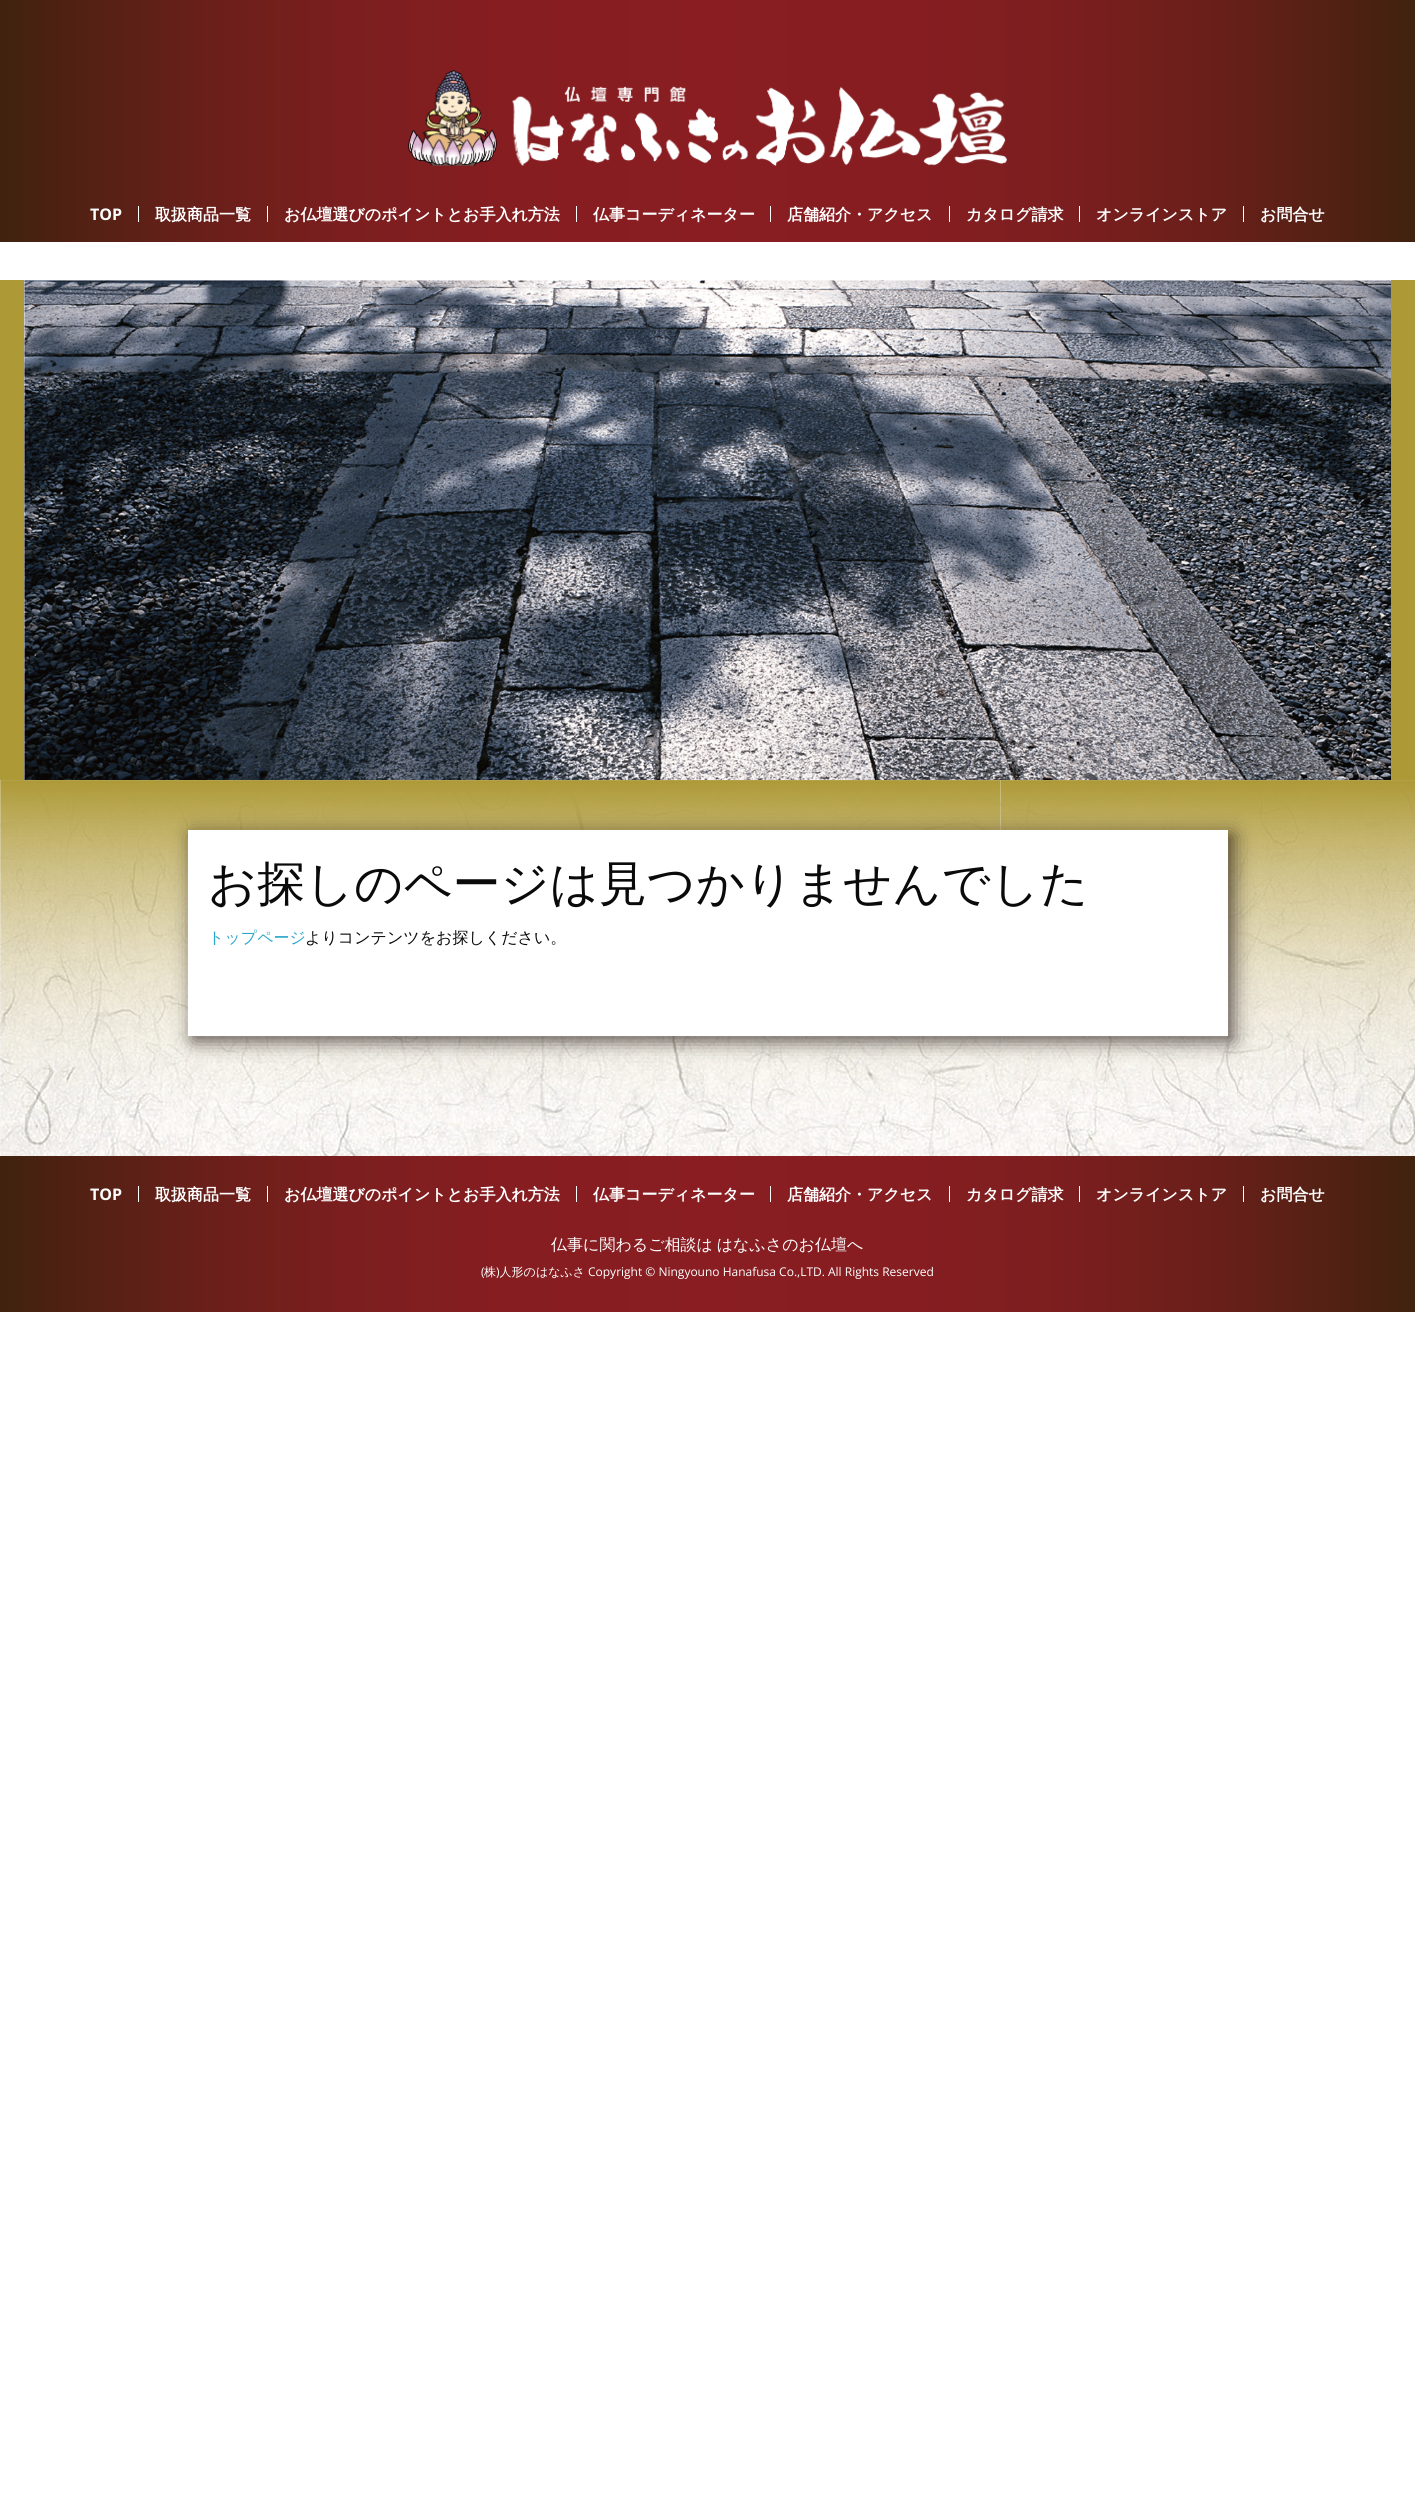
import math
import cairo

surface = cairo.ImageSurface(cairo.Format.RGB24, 1415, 2505)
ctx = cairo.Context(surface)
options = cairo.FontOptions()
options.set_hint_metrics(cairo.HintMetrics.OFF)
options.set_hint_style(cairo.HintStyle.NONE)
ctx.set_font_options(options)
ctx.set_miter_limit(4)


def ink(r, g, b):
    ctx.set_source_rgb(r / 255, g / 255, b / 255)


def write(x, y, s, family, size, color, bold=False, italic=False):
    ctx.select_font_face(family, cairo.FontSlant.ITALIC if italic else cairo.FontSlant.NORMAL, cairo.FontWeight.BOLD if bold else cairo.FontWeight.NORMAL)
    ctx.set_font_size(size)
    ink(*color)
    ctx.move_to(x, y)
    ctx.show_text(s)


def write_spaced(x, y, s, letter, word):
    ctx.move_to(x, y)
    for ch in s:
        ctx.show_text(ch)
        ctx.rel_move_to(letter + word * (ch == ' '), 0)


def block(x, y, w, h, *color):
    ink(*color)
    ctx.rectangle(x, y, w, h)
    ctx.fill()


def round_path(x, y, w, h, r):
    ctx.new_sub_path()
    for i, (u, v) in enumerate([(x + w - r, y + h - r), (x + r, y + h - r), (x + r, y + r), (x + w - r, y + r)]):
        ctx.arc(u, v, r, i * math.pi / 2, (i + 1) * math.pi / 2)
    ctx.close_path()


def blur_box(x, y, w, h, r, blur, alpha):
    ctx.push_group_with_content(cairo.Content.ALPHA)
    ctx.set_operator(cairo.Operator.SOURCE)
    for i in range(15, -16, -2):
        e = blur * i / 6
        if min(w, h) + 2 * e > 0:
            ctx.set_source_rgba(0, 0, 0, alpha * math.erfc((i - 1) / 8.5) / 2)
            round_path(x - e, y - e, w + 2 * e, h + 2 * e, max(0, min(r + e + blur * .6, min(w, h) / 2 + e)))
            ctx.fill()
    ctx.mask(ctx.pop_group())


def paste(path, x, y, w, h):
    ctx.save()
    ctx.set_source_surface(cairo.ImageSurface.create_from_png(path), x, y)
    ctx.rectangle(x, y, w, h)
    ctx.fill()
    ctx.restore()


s1 = dict(family="Open Sans", size=16, color=(255, 255, 255), bold=True)
s2 = dict(family="WenQuanYi Zen Hei", size=16, color=(255, 255, 255), bold=True)
s3 = dict(family="WenQuanYi Zen Hei Medium", size=48, color=(10, 10, 10))
s4 = dict(family="WenQuanYi Zen Hei Medium", size=16, color=(43, 166, 203))
s5 = dict(family="WenQuanYi Zen Hei Medium", size=16, color=(10, 10, 10))
s6 = dict(family="Open Sans", size=12, color=(255, 255, 255))
s7 = dict(family="WenQuanYi Zen Hei Medium", size=12, color=(255, 255, 255))

ink(255, 255, 255)
ctx.paint()
gradient = cairo.LinearGradient(0, 121, 1415, 121)
gradient.add_color_stop_rgba(0, 0.251, 0.133, 0.059, 1)
gradient.add_color_stop_rgba(0.06, 0.325, 0.129, 0.078, 1)
gradient.add_color_stop_rgba(0.15, 0.42, 0.122, 0.102, 1)
gradient.add_color_stop_rgba(0.25, 0.486, 0.118, 0.122, 1)
gradient.add_color_stop_rgba(0.36, 0.525, 0.114, 0.129, 1)
gradient.add_color_stop_rgba(0.5, 0.537, 0.114, 0.133, 1)
gradient.add_color_stop_rgba(0.64, 0.525, 0.114, 0.129, 1)
gradient.add_color_stop_rgba(0.75, 0.486, 0.118, 0.122, 1)
gradient.add_color_stop_rgba(0.85, 0.42, 0.122, 0.102, 1)
gradient.add_color_stop_rgba(0.94, 0.325, 0.129, 0.078, 1)
gradient.add_color_stop_rgba(1, 0.251, 0.133, 0.059, 1)
ctx.set_source(gradient)
ctx.rectangle(0, 0, 1415, 242)
ctx.fill()
paste("pic1.png", 408, 70, 599, 96)
block(138, 206, 1, 16, 255, 255, 255)
write(90, 220, "TOP", **s1)
block(267, 206, 1, 16, 255, 255, 255)
write(155, 220, "取扱商品一覧", **s2)
block(576, 206, 1, 16, 255, 255, 255)
write(284, 220, "お仏壇選びのポイントとお手入れ方法", **s2)
block(770, 206, 1, 16, 255, 255, 255)
write(593, 220, "仏事コーディネーター", **s2)
block(949, 206, 1, 16, 255, 255, 255)
write(787, 220, "店舗紹介・アクセス", **s2)
block(1079, 206, 1, 16, 255, 255, 255)
write(966, 220, "カタログ請求", **s2)
block(1243, 206, 1, 16, 255, 255, 255)
write(1096, 220, "オンラインストア", **s2)
write(1260, 220, "お問合せ", **s2)
block(0, 280, 1415, 500, 174, 153, 55)
paste("pic2.png", 24, 280, 1367, 500)
paste("pic3.png", 0, 780, 1415, 376)
paste("pic4.png", 0, 780, 1415, 345)
ink(35, 24, 21)
blur_box(193, 835, 1040, 206, 0, 10, 0.75)
block(188, 830, 1040, 206, 255, 255, 255)
write(208, 900, "お探しのページは見つかりませんでした", **s3)
write(208, 943, "トップページ", **s4)
write(305, 943, "よりコンテンツをお探しください。", **s5)
gradient = cairo.LinearGradient(0, 1234, 1415, 1234)
gradient.add_color_stop_rgba(0, 0.251, 0.133, 0.059, 1)
gradient.add_color_stop_rgba(0.06, 0.325, 0.129, 0.078, 1)
gradient.add_color_stop_rgba(0.15, 0.42, 0.122, 0.102, 1)
gradient.add_color_stop_rgba(0.25, 0.486, 0.118, 0.122, 1)
gradient.add_color_stop_rgba(0.36, 0.525, 0.114, 0.129, 1)
gradient.add_color_stop_rgba(0.5, 0.537, 0.114, 0.133, 1)
gradient.add_color_stop_rgba(0.64, 0.525, 0.114, 0.129, 1)
gradient.add_color_stop_rgba(0.75, 0.486, 0.118, 0.122, 1)
gradient.add_color_stop_rgba(0.85, 0.42, 0.122, 0.102, 1)
gradient.add_color_stop_rgba(0.94, 0.325, 0.129, 0.078, 1)
gradient.add_color_stop_rgba(1, 0.251, 0.133, 0.059, 1)
ctx.set_source(gradient)
ctx.rectangle(0, 1156, 1415, 156)
ctx.fill()
block(138, 1186, 1, 16, 255, 255, 255)
write(90, 1200, "TOP", **s1)
block(267, 1186, 1, 16, 255, 255, 255)
write(155, 1200, "取扱商品一覧", **s2)
block(576, 1186, 1, 16, 255, 255, 255)
write(284, 1200, "お仏壇選びのポイントとお手入れ方法", **s2)
block(770, 1186, 1, 16, 255, 255, 255)
write(593, 1200, "仏事コーディネーター", **s2)
block(949, 1186, 1, 16, 255, 255, 255)
write(787, 1200, "店舗紹介・アクセス", **s2)
block(1079, 1186, 1, 16, 255, 255, 255)
write(966, 1200, "カタログ請求", **s2)
block(1243, 1186, 1, 16, 255, 255, 255)
write(1096, 1200, "オンラインストア", **s2)
write(1260, 1200, "お問合せ", **s2)
ctx.select_font_face("WenQuanYi Zen Hei Medium")
write_spaced(551, 1250, "仏事に関わるご相談は はなふさのお仏壇へ", 0, -1)
write(481, 1276, "(", **s6)
write(484, 1276, "株 人形のはなふさ", **s7)
write(588, 1276, "Copyright © Ningyouno Hanafusa Co.,LTD. All Rights Reserved", **s6)
write(496, 1276, ")", **s6)
surface.write_to_png("screenshot.png")
